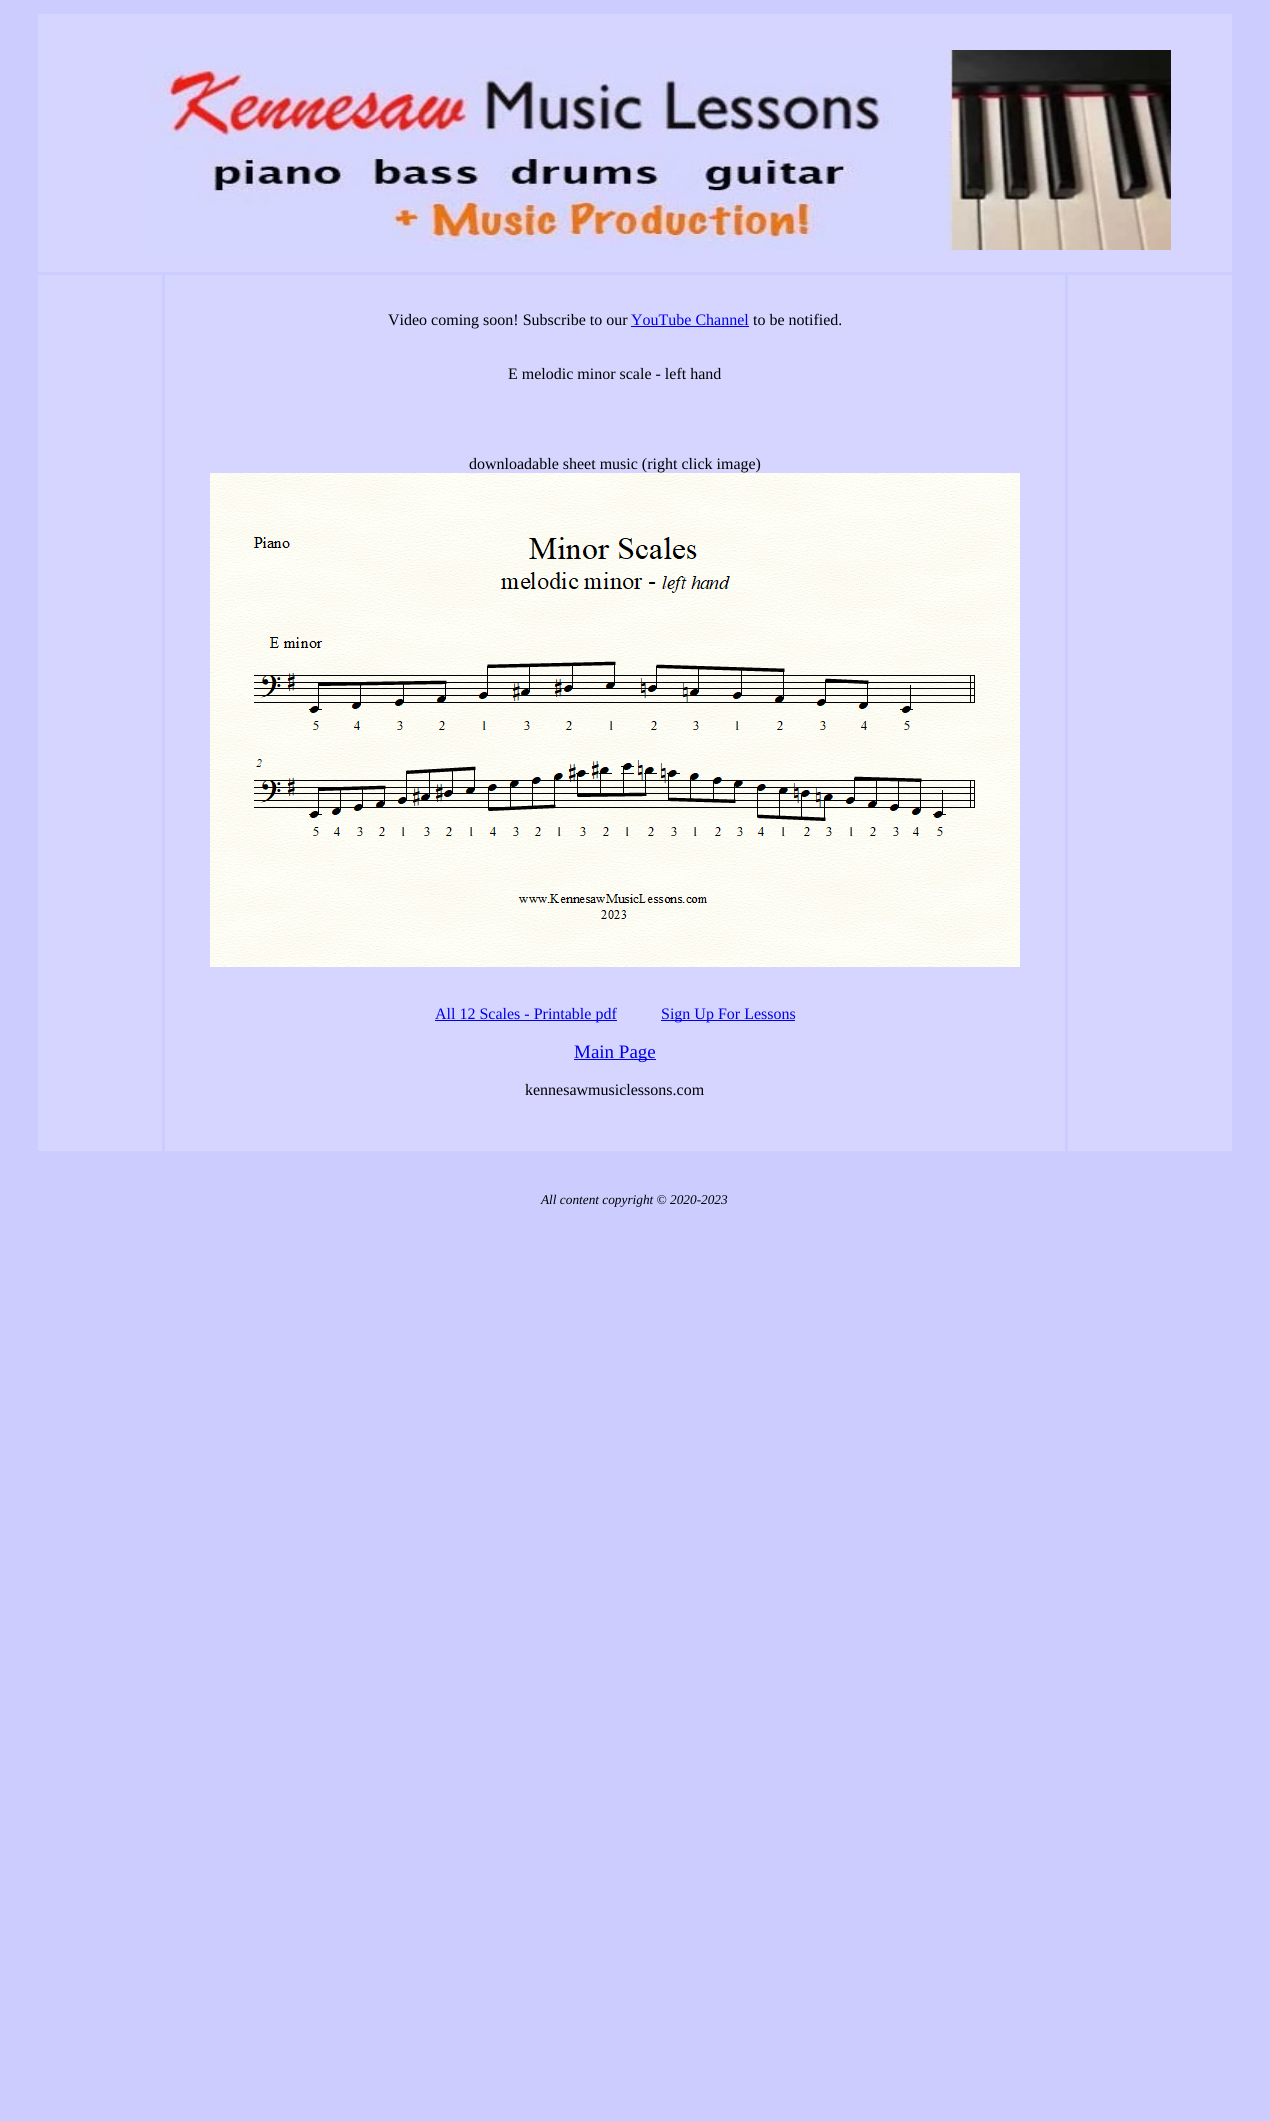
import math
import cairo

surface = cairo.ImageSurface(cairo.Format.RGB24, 1270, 2121)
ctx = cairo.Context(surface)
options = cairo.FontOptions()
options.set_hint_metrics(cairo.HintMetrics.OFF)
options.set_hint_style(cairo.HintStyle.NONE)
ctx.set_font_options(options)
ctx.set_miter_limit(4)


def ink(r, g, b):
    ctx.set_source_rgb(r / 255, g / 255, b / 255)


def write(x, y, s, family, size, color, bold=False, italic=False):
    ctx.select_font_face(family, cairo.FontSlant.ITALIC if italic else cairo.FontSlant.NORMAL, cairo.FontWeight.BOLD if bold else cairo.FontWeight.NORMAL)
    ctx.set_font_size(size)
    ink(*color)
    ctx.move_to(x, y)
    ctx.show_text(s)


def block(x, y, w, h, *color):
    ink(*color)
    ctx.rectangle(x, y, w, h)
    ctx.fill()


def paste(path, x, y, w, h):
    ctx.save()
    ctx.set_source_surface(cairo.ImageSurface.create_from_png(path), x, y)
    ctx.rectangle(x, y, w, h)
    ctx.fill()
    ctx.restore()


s1 = dict(family="Liberation Serif", size=16, color=(0, 0, 0))
s2 = dict(family="Liberation Serif", size=16, color=(0, 0, 238))
s3 = dict(family="Liberation Serif", size=19, color=(0, 0, 238))
s4 = dict(family="Liberation Serif", size=13.3, color=(0, 0, 0), italic=True)

ink(204, 204, 255)
ctx.paint()
block(38, 14, 1194, 258, 213, 213, 255)
paste("pic1.png", 148, 50, 1023, 200)
block(38, 275, 124, 876, 213, 213, 255)
block(165, 275, 900, 876, 213, 213, 255)
write(388, 325, "Video coming soon! Subscribe to our", **s1)
write(631, 325, "YouTube Channel", **s2)
block(631, 326, 118, 1, 0, 0, 238)
write(753, 325, "to be notified.", **s1)
write(508, 379, "E melodic minor scale - left hand", **s1)
write(469, 469, "downloadable sheet music (right click image)", **s1)
paste("pic2.png", 210, 473, 810, 494)
block(435, 1020, 182, 1, 0, 0, 238)
write(435, 1019, "All 12 Scales - Printable pdf", **s2)
block(661, 1020, 134, 1, 0, 0, 238)
write(661, 1019, "Sign Up For Lessons", **s2)
block(574, 1059, 82, 1, 0, 0, 238)
write(574, 1058, "Main Page", **s3)
write(525, 1095, "kennesawmusiclessons.com", **s1)
block(1068, 275, 164, 876, 213, 213, 255)
write(541, 1204, "All content copyright © 2020-2023", **s4)
surface.write_to_png("screenshot.png")
